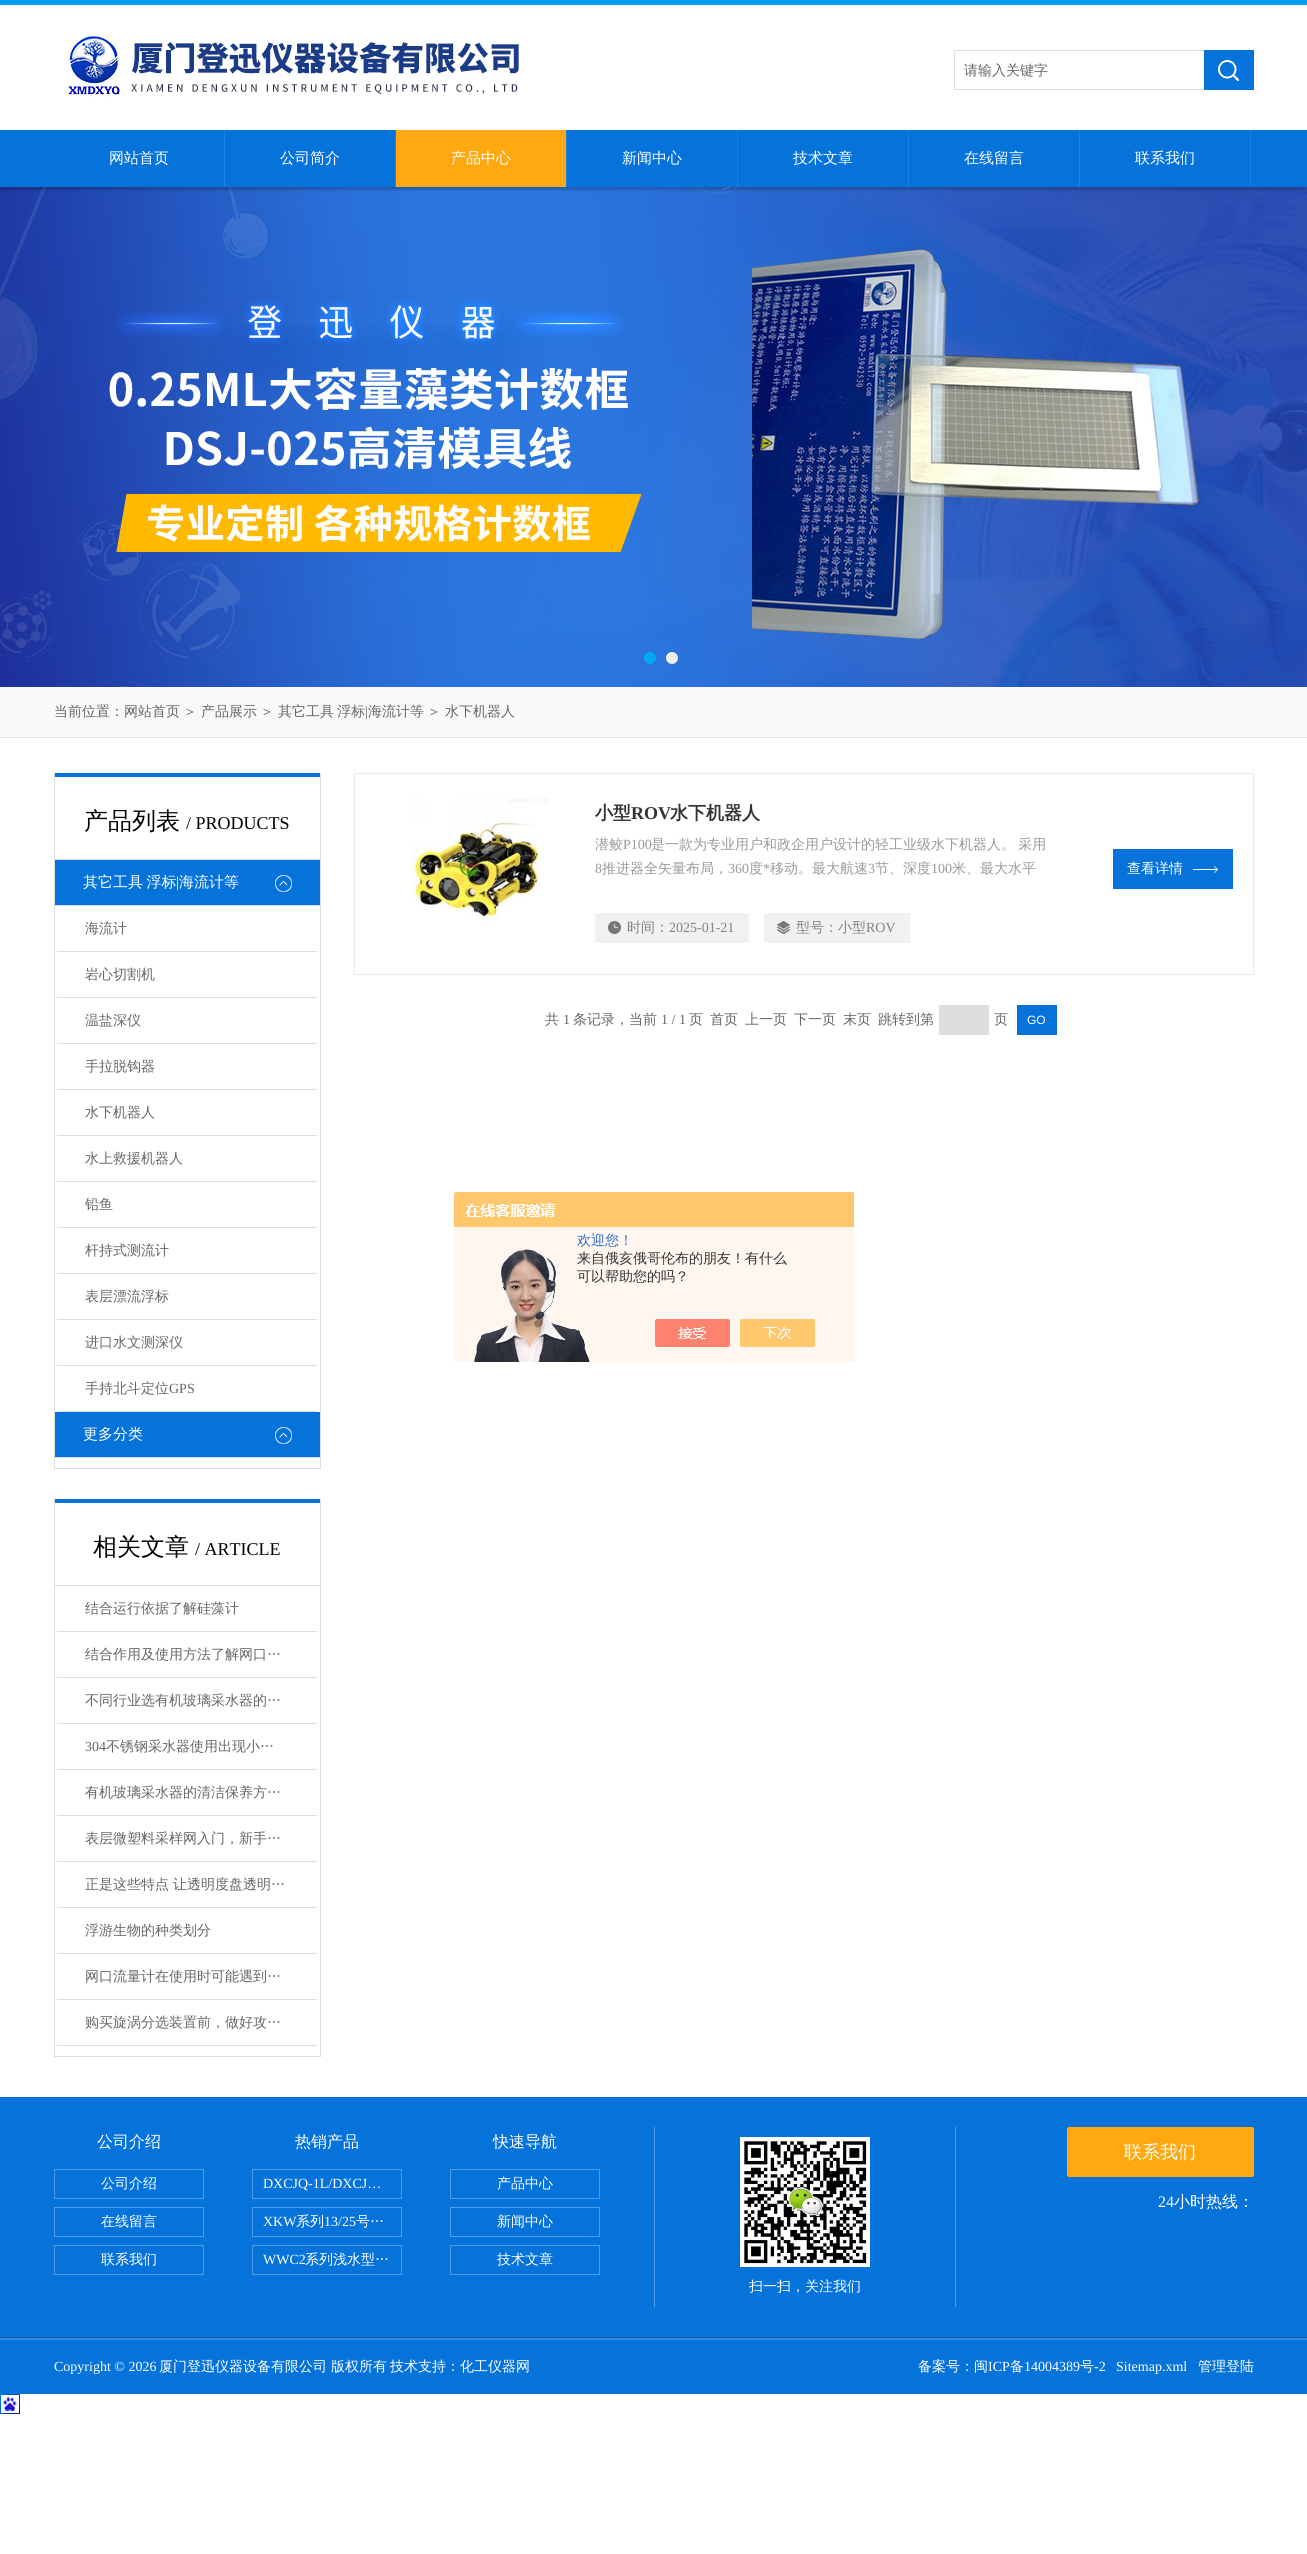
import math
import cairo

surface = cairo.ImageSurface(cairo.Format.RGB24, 1307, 2554)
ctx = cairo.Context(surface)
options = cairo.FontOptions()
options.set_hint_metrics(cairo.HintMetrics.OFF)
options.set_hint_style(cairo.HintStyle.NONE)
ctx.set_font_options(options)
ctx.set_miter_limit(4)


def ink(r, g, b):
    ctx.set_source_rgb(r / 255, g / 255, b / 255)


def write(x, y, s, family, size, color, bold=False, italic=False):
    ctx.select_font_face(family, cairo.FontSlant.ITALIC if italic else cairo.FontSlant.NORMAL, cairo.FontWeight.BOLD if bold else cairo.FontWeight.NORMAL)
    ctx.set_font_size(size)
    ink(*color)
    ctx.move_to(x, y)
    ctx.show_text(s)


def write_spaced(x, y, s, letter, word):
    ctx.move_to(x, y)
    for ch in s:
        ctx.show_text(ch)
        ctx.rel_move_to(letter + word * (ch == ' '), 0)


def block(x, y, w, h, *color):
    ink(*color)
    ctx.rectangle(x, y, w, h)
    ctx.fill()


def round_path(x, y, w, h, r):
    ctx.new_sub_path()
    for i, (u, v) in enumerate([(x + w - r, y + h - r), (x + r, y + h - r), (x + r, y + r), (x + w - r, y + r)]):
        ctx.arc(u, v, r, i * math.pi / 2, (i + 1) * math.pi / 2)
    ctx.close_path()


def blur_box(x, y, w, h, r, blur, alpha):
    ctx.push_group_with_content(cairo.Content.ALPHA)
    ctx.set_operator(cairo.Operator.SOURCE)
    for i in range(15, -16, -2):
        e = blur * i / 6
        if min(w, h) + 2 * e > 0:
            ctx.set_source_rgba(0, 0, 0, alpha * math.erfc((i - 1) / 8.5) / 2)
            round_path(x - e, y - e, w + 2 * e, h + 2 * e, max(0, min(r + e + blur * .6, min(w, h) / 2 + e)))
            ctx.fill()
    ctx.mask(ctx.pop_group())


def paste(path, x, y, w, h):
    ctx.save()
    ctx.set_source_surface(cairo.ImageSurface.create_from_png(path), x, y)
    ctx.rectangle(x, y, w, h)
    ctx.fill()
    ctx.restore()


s1 = dict(family="WenQuanYi Zen Hei Medium", size=14, color=(102, 102, 102))
s2 = dict(family="WenQuanYi Zen Hei Medium", size=15, color=(255, 255, 255))
s3 = dict(family="Liberation Serif", size=14, color=(102, 102, 102))
s4 = dict(family="WenQuanYi Zen Hei Medium", size=24, color=(0, 0, 0))
s5 = dict(family="Liberation Serif", size=18, color=(0, 0, 0))
s6 = dict(family="Liberation Serif", size=15, color=(255, 255, 255))
s7 = dict(family="WenQuanYi Zen Hei", size=18, color=(51, 51, 51), bold=True)
s8 = dict(family="Liberation Serif", size=18, color=(51, 51, 51), bold=True)
s9 = dict(family="WenQuanYi Zen Hei Medium", size=14, color=(153, 153, 153))
s10 = dict(family="Liberation Serif", size=14, color=(153, 153, 153))
s11 = dict(family="WenQuanYi Zen Hei Medium", size=14, color=(130, 130, 130))
s12 = dict(family="Liberation Serif", size=14, color=(130, 130, 130))
s13 = dict(family="WenQuanYi Zen Hei Medium", size=14, color=(255, 255, 255))
s14 = dict(family="Liberation Sans", size=12, color=(255, 255, 255))
s15 = dict(family="WenQuanYi Zen Hei Medium", size=14, color=(46, 110, 198))
s16 = dict(family="WenQuanYi Zen Hei Medium", size=14, color=(51, 51, 51))
s17 = dict(family="WenQuanYi Zen Hei Medium", size=16, color=(255, 255, 255))
s18 = dict(family="Liberation Serif", size=14, color=(255, 255, 255))
s19 = dict(family="WenQuanYi Zen Hei Medium", size=18, color=(255, 255, 255))
s20 = dict(family="Liberation Serif", size=16, color=(255, 255, 255))

ink(255, 255, 255)
ctx.paint()
block(0, 0, 1307, 5, 3, 158, 238)
paste("pic1.png", 63, 36, 456, 63)
block(954, 50, 250, 1, 223, 223, 223)
block(954, 89, 250, 1, 223, 223, 223)
block(954, 50, 1, 40, 223, 223, 223)
write(964, 75, "请输入关键字", **s1)
block(1204, 50, 50, 40, 5, 115, 218)
paste("pic2.png", 1218, 60, 21, 21)
paste("pic3.png", 0, 187, 1307, 500)
ink(0, 0, 0)
blur_box(1, 135, 1305, 55, 0, 1, 0.2)
block(0, 130, 1307, 57, 5, 115, 218)
block(224, 130, 1, 57, 30, 129, 222)
write(109, 163, "网站首页", **s2)
block(395, 130, 1, 57, 30, 129, 222)
write(280, 163, "公司简介", **s2)
block(396, 130, 170, 57, 255, 168, 16)
block(566, 130, 1, 57, 30, 129, 222)
write(451, 163, "产品中心", **s2)
block(737, 130, 1, 57, 30, 129, 222)
write(622, 163, "新闻中心", **s2)
block(908, 130, 1, 57, 30, 129, 222)
write(793, 163, "技术文章", **s2)
block(1079, 130, 1, 57, 30, 129, 222)
write(964, 163, "在线留言", **s2)
block(1250, 130, 1, 57, 30, 129, 222)
write(1135, 163, "联系我们", **s2)
ink(0, 170, 239)
ctx.new_path()
ctx.arc(650, 658, 6, 0, 2 * math.pi)
ctx.fill()
ink(238, 238, 238)
ctx.arc(672, 658, 6, 0, 2 * math.pi)
ctx.fill()
block(0, 687, 1307, 50, 249, 249, 249)
block(0, 737, 1307, 1, 223, 223, 223)
write(54, 716, "当前位置：网站首页", **s1)
write(183, 716, "＞", **s1)
write(201, 716, "产品展示", **s1)
write(260, 716, "＞", **s1)
write_spaced(278, 716, "其它工具 浮标", 0, -1)
write(365, 716, "|", **s3)
write(368, 716, "海流计等", **s1)
write(427, 716, "＞", **s1)
write(445, 716, "水下机器人", **s1)
block(320, 773, 1, 696, 221, 221, 221)
block(54, 1468, 267, 1, 221, 221, 221)
block(54, 773, 1, 696, 221, 221, 221)
block(55, 773, 265, 4, 5, 115, 218)
block(55, 859, 265, 1, 221, 221, 221)
write(84, 829, "产品列表", **s4)
write(186, 829, "/ PRODUCTS", **s5)
block(55, 860, 265, 45, 5, 115, 218)
paste("pic4.png", 275, 875, 17, 17)
block(55, 905, 265, 1, 221, 221, 221)
ctx.select_font_face("WenQuanYi Zen Hei Medium")
ctx.set_font_size(15)
ink(255, 255, 255)
write_spaced(83, 887, "其它工具 浮标", 0, -1)
write(176, 887, "|", **s6)
write(179, 887, "海流计等", **s2)
block(57, 951, 260, 1, 221, 221, 221)
write(85, 933, "海流计", **s1)
block(57, 997, 260, 1, 221, 221, 221)
write(85, 979, "岩心切割机", **s1)
block(57, 1043, 260, 1, 221, 221, 221)
write(85, 1025, "温盐深仪", **s1)
block(57, 1089, 260, 1, 221, 221, 221)
write(85, 1071, "手拉脱钩器", **s1)
block(57, 1135, 260, 1, 221, 221, 221)
write(85, 1117, "水下机器人", **s1)
block(57, 1181, 260, 1, 221, 221, 221)
write(85, 1163, "水上救援机器人", **s1)
block(57, 1227, 260, 1, 221, 221, 221)
write(85, 1209, "铅鱼", **s1)
block(57, 1273, 260, 1, 221, 221, 221)
write(85, 1255, "杆持式测流计", **s1)
block(57, 1319, 260, 1, 221, 221, 221)
write(85, 1301, "表层漂流浮标", **s1)
block(57, 1365, 260, 1, 221, 221, 221)
write(85, 1347, "进口水文测深仪", **s1)
block(57, 1411, 260, 1, 221, 221, 221)
write(85, 1393, "手持北斗定位", **s1)
write(169, 1393, "GPS", **s3)
block(55, 1412, 265, 45, 5, 115, 218)
paste("pic4.png", 275, 1427, 17, 17)
block(55, 1457, 265, 1, 221, 221, 221)
write(83, 1439, "更多分类", **s2)
block(320, 1499, 1, 558, 221, 221, 221)
block(54, 2056, 267, 1, 221, 221, 221)
block(54, 1499, 1, 558, 221, 221, 221)
block(55, 1499, 265, 4, 5, 115, 218)
block(55, 1585, 265, 1, 221, 221, 221)
write(93, 1555, "相关文章", **s4)
write(195, 1555, "/ ARTICLE", **s5)
block(57, 1631, 260, 1, 221, 221, 221)
write(85, 1613, "结合运行依据了解硅藻计", **s1)
block(57, 1677, 260, 1, 221, 221, 221)
write(85, 1659, "结合作用及使用方法了解网口…", **s1)
block(57, 1723, 260, 1, 221, 221, 221)
write(85, 1705, "不同行业选有机玻璃采水器的…", **s1)
block(57, 1769, 260, 1, 221, 221, 221)
write(85, 1751, "304", **s3)
write(106, 1751, "不锈钢采水器使用出现小…", **s1)
block(57, 1815, 260, 1, 221, 221, 221)
write(85, 1797, "有机玻璃采水器的清洁保养方…", **s1)
block(57, 1861, 260, 1, 221, 221, 221)
write(85, 1843, "表层微塑料采样网入门，新手…", **s1)
block(57, 1907, 260, 1, 221, 221, 221)
write(85, 1889, "正是这些特点", **s1)
write(173, 1889, "让透明度盘透明…", **s1)
block(57, 1953, 260, 1, 221, 221, 221)
write(85, 1935, "浮游生物的种类划分", **s1)
block(57, 1999, 260, 1, 221, 221, 221)
write(85, 1981, "网口流量计在使用时可能遇到…", **s1)
block(57, 2045, 260, 1, 221, 221, 221)
write(85, 2027, "购买旋涡分选装置前，做好攻…", **s1)
ctx.rectangle(354.5, 773.5, 899, 201)
ink(234, 234, 234)
ctx.set_line_width(1)
ctx.stroke()
paste("pic5.png", 411, 797, 138, 125)
write(595, 819, "小型", **s7)
write(631, 819, "ROV", **s8)
write(670, 819, "水下机器人", **s7)
write(595, 849, "潜鲛", **s9)
write(623, 849, "P100", **s10)
ctx.select_font_face("WenQuanYi Zen Hei Medium")
write_spaced(651, 849, "是一款为专业用户和政企用户设计的轻工业级水下机器人。 采用", 0, -1)
write(595, 873, "8", **s10)
write(602, 873, "推进器全矢量布局，", **s9)
write(728, 873, "360", **s10)
write(749, 873, "度", **s9)
write(763, 873, "*", **s10)
write(770, 873, "移动。最大航速", **s9)
write(868, 873, "3", **s10)
write(875, 873, "节、深度", **s9)
write(931, 873, "100", **s10)
write(952, 873, "米、最大水平", **s9)
block(595, 913, 154, 30, 241, 241, 241)
paste("pic6.png", 608, 921, 13, 13)
write(627, 932, "时间：", **s11)
write(669, 932, "2025-01-21", **s12)
block(764, 913, 146, 30, 241, 241, 241)
paste("pic7.png", 777, 921, 13, 13)
write(796, 932, "型号：小型", **s11)
write(866, 932, "ROV", **s12)
block(1113, 849, 120, 40, 5, 115, 218)
write(1127, 873, "查看详情", **s13)
paste("pic8.png", 1193, 866, 25, 7)
write(545, 1024, "共", **s1)
write(563, 1024, "1", **s3)
write(573, 1024, "条记录，当前", **s1)
write(661, 1024, "1 / 1", **s3)
write(689, 1024, "页", **s1)
write(710, 1024, "首页", **s1)
write(745, 1024, "上一页", **s1)
write(794, 1024, "下一页", **s1)
write(843, 1024, "末页", **s1)
write(878, 1024, "跳转到第", **s1)
block(939, 1005, 50, 30, 221, 221, 221)
write(994, 1024, "页", **s1)
block(1017, 1005, 40, 30, 5, 115, 218)
write(1027, 1024, "GO", **s14)
paste("pic9.png", 454, 1192, 400, 170)
write(577, 1245, "欢迎您！", **s15)
write(577, 1263, "来自俄亥俄哥伦布的朋友！有什么", **s16)
write(577, 1281, "可以帮助您的吗？", **s16)
block(0, 2097, 1307, 240, 5, 115, 218)
block(0, 2337, 1307, 1, 15, 92, 165)
write(97, 2147, "公司介绍", **s17)
ctx.rectangle(54.5, 2169.5, 149, 29)
ink(80, 157, 229)
ctx.stroke()
write(101, 2188, "公司介绍", **s13)
ctx.rectangle(54.5, 2207.5, 149, 29)
ink(80, 157, 229)
ctx.stroke()
write(101, 2226, "在线留言", **s13)
ctx.rectangle(54.5, 2245.5, 149, 29)
ink(80, 157, 229)
ctx.stroke()
write(101, 2264, "联系我们", **s13)
write(295, 2147, "热销产品", **s17)
ctx.rectangle(252.5, 2169.5, 149, 29)
ink(80, 157, 229)
ctx.stroke()
write(263, 2188, "DXCJQ-1L/DXCJ…", **s18)
ctx.rectangle(252.5, 2207.5, 149, 29)
ink(80, 157, 229)
ctx.stroke()
write(263, 2226, "XKW", **s18)
write(296, 2226, "系列", **s13)
write(324, 2226, "13/25", **s18)
write(356, 2226, "号…", **s13)
ctx.rectangle(252.5, 2245.5, 149, 29)
ink(80, 157, 229)
ctx.stroke()
write(263, 2264, "WWC2", **s18)
ctx.select_font_face("WenQuanYi Zen Hei Medium")
write_spaced(305, 2264, "系列浅水型…", 0, -1)
write(493, 2147, "快速导航", **s17)
ctx.rectangle(450.5, 2169.5, 149, 29)
ink(80, 157, 229)
ctx.stroke()
write(497, 2188, "产品中心", **s13)
ctx.rectangle(450.5, 2207.5, 149, 29)
ink(80, 157, 229)
ctx.stroke()
write(497, 2226, "新闻中心", **s13)
ctx.rectangle(450.5, 2245.5, 149, 29)
ink(80, 157, 229)
ctx.stroke()
write(497, 2264, "技术文章", **s13)
ink(255, 168, 16)
round_path(1067, 2127, 187, 50, 2)
ctx.fill()
write(1124, 2158, "联系我们", **s19)
write(1158, 2207, "24", **s20)
write(1174, 2207, "小时热线：", **s17)
block(955, 2127, 1, 180, 80, 157, 229)
block(654, 2127, 1, 180, 80, 157, 229)
paste("pic10.png", 740, 2137, 130, 130)
write(749, 2291, "扫一扫，关注我们", **s13)
block(0, 2340, 1307, 54, 5, 115, 218)
block(0, 2338, 1307, 2, 50, 141, 226)
write(54, 2371, "Copyright © 2026", **s18)
write(159, 2371, "厦门登迅仪器设备有限公司", **s13)
write(331, 2371, "版权所有", **s13)
write(390, 2371, "技术支持：化工仪器网", **s13)
write(918, 2371, "备案号：闽", **s13)
write(988, 2371, "ICP", **s18)
write(1010, 2371, "备", **s13)
write(1024, 2371, "14004389", **s18)
write(1080, 2371, "号", **s13)
write(1094, 2371, "-2", **s18)
write(1116, 2371, "Sitemap.xml", **s18)
write(1198, 2371, "管理登陆", **s13)
paste("pic11.png", 0, 2394, 20, 20)
surface.write_to_png("screenshot.png")
